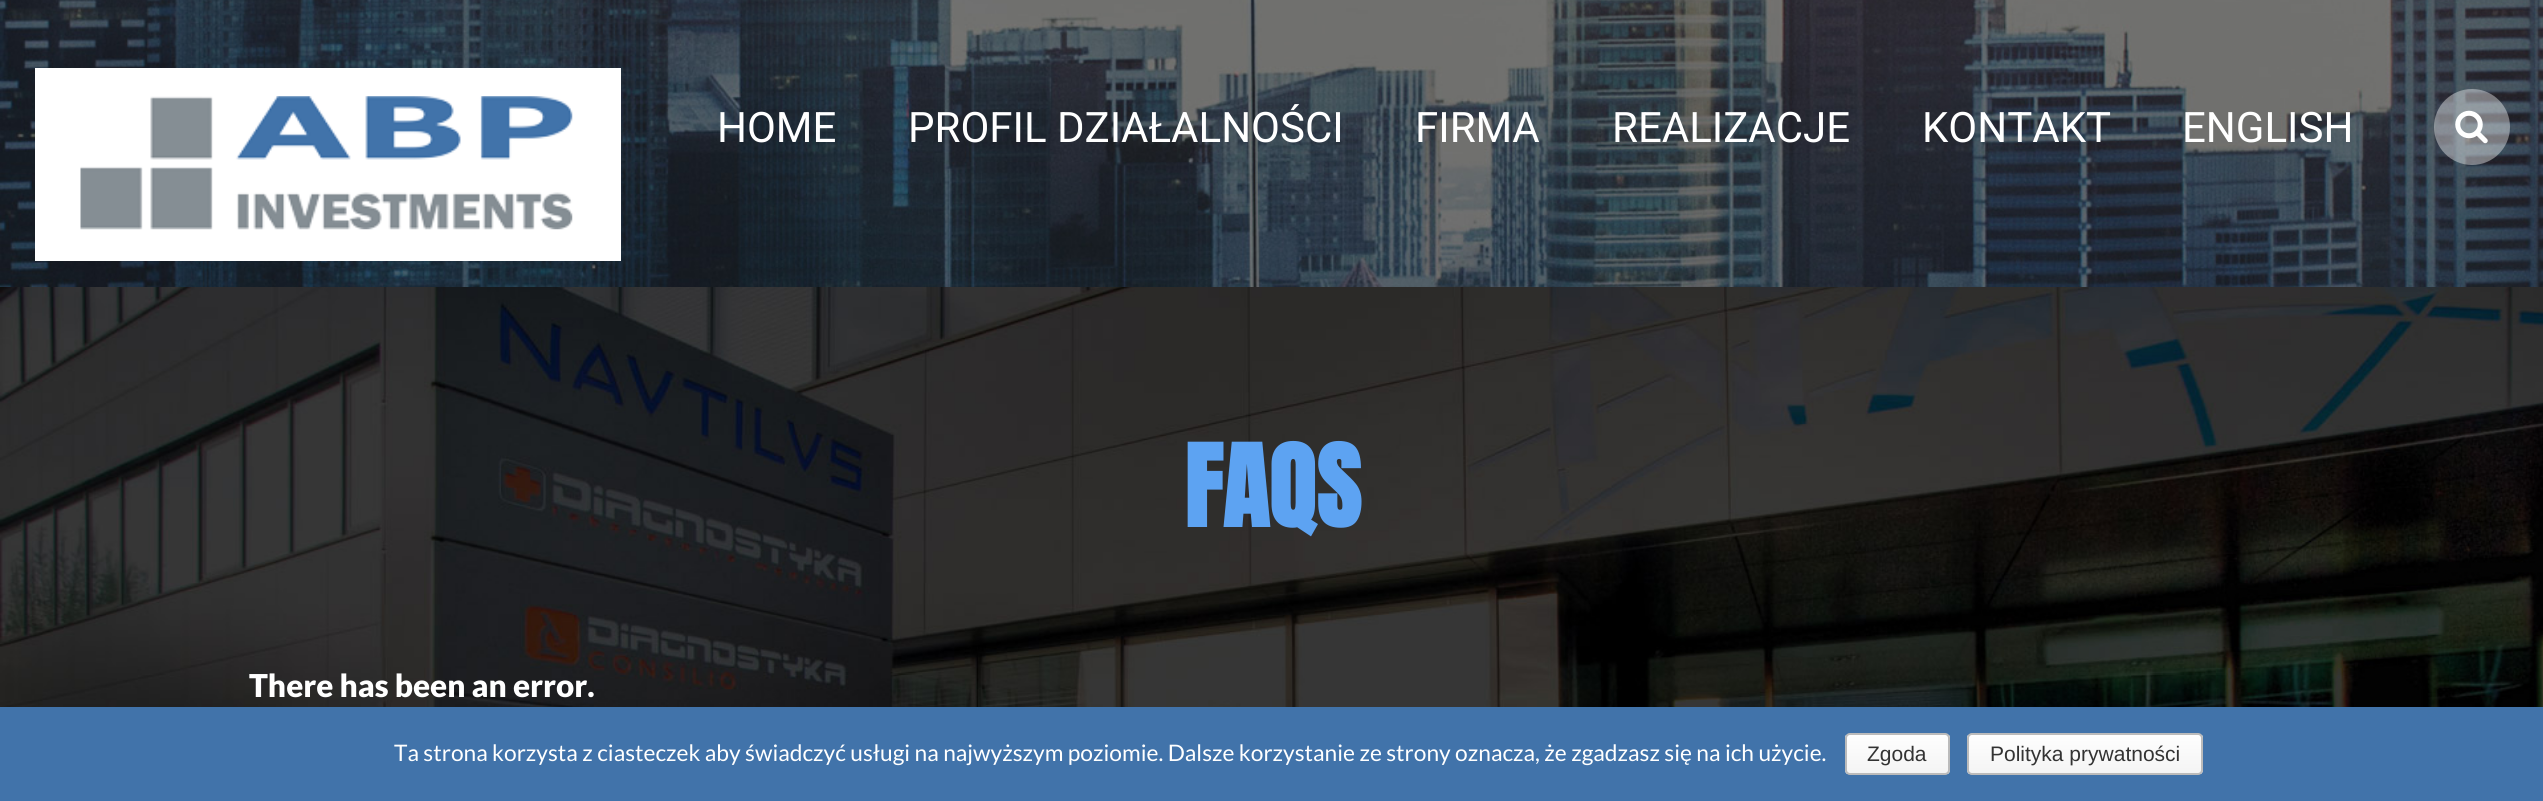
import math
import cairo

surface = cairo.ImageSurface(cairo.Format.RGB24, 2543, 801)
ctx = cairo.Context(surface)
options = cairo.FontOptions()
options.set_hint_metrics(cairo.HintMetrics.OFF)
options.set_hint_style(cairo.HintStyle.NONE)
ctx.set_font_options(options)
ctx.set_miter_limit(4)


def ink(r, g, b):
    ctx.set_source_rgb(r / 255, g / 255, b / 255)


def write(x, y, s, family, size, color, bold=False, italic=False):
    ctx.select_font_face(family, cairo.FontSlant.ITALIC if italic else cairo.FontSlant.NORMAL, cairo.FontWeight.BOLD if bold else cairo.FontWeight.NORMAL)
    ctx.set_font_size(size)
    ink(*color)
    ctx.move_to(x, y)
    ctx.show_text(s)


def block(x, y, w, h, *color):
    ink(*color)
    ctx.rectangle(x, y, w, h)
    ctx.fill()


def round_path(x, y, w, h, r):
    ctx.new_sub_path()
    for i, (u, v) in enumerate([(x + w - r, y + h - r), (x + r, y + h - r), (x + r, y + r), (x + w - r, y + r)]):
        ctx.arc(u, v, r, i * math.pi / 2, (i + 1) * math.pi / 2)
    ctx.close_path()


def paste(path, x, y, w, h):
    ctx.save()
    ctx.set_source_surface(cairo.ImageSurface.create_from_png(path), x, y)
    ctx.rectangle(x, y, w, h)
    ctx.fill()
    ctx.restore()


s1 = dict(family="Roboto", size=42, color=(255, 255, 255))
s2 = dict(family="Anton", size=96, color=(93, 163, 242), bold=True)
s3 = dict(family="Lato Black", size=31.5, color=(255, 255, 255))
s4 = dict(family="Lato", size=22.75, color=(255, 255, 255))
s5 = dict(family="Liberation Sans", size=21, color=(51, 51, 51))

ink(255, 255, 255)
ctx.paint()
paste("pic1.png", 0, 287, 2543, 420)
paste("pic2.png", 0, 0, 2543, 287)
block(35, 68, 586, 193, 255, 255, 255)
paste("pic3.png", 80, 96, 493, 134)
write(717, 142, "HOME", **s1)
write(908, 142, "PROFIL DZIAŁALNOŚCI", **s1)
write(1415, 142, "FIRMA", **s1)
write(1612, 142, "REALIZACJE", **s1)
write(1922, 142, "KONTAKT", **s1)
write(2182, 142, "ENGLISH", **s1)
ctx.set_source_rgba(1, 1, 1, 0.4)
ctx.new_path()
ctx.arc(2472, 127, 38, 0, 2 * math.pi)
ctx.fill()
paste("pic4.png", 2455, 110, 33, 34)
write(1184, 527, "FAQS", **s2)
write(249, 697, "There has been an error.", **s3)
block(0, 707, 2543, 94, 65, 115, 170)
write(394, 761, "Ta strona korzysta z ciasteczek aby świadczyć usługi na najwyższym poziomie. Dalsze korzystanie ze strony oznacza, że zgadzasz się na ich użycie.", **s4)
ctx.save()
round_path(1845, 733, 105, 42, 5)
ctx.clip()
gradient = cairo.LinearGradient(1897, 735, 1897, 774)
gradient.add_color_stop_rgba(0, 0.996, 0.996, 0.996, 1)
gradient.add_color_stop_rgba(1, 0.957, 0.957, 0.957, 1)
ctx.set_source(gradient)
ctx.rectangle(1845, 735, 105, 39)
ctx.fill()
ctx.restore()
round_path(1846, 734, 103, 40, 4)
ink(187, 187, 187)
ctx.stroke()
write(1867, 761, "Zgoda", **s5)
ctx.save()
round_path(1967, 733, 236, 42, 5)
ctx.clip()
gradient = cairo.LinearGradient(2085, 735, 2085, 774)
gradient.add_color_stop_rgba(0, 0.996, 0.996, 0.996, 1)
gradient.add_color_stop_rgba(1, 0.957, 0.957, 0.957, 1)
ctx.set_source(gradient)
ctx.rectangle(1967, 735, 236, 39)
ctx.fill()
ctx.restore()
round_path(1968, 734, 234, 40, 4)
ink(187, 187, 187)
ctx.stroke()
write(1990, 761, "Polityka prywatności", **s5)
surface.write_to_png("screenshot.png")
